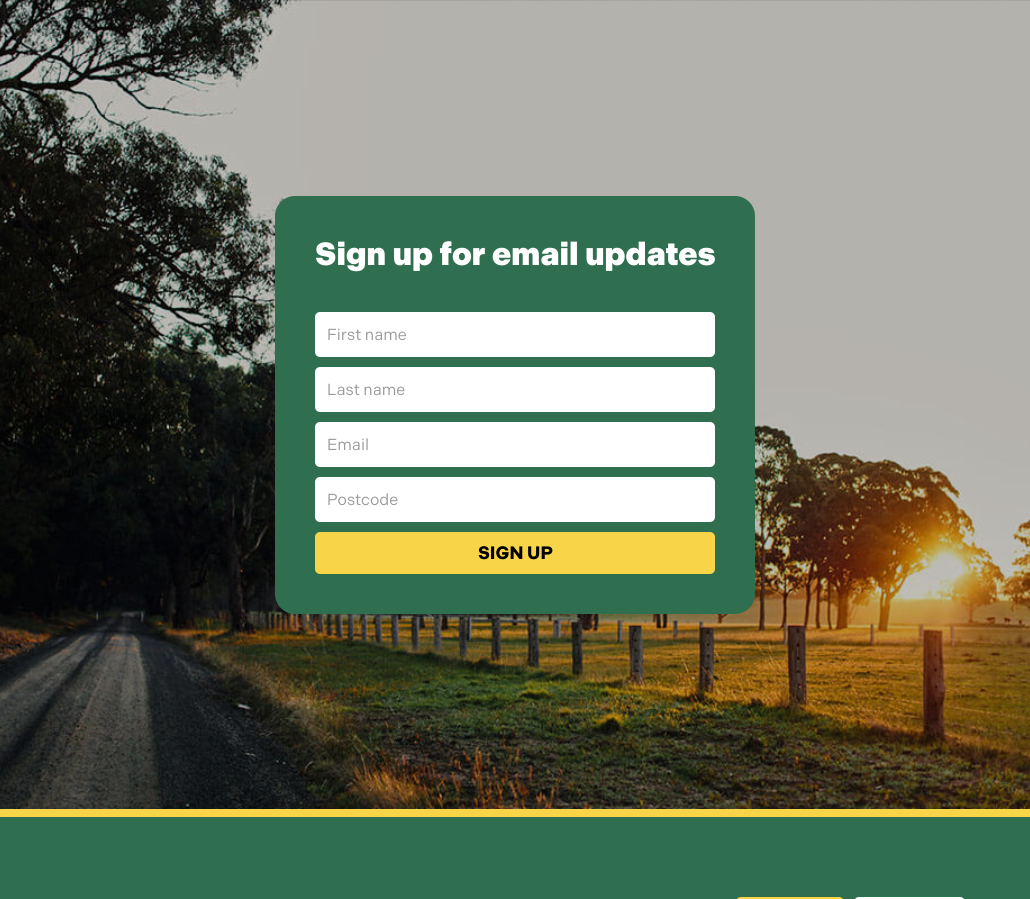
import math
import cairo

surface = cairo.ImageSurface(cairo.Format.RGB24, 1030, 899)
ctx = cairo.Context(surface)
options = cairo.FontOptions()
options.set_hint_metrics(cairo.HintMetrics.OFF)
options.set_hint_style(cairo.HintStyle.NONE)
ctx.set_font_options(options)
ctx.set_miter_limit(4)


def ink(r, g, b):
    ctx.set_source_rgb(r / 255, g / 255, b / 255)


def write(x, y, s, family, size, color, bold=False, italic=False):
    ctx.select_font_face(family, cairo.FontSlant.ITALIC if italic else cairo.FontSlant.NORMAL, cairo.FontWeight.BOLD if bold else cairo.FontWeight.NORMAL)
    ctx.set_font_size(size)
    ink(*color)
    ctx.move_to(x, y)
    ctx.show_text(s)


def block(x, y, w, h, *color):
    ink(*color)
    ctx.rectangle(x, y, w, h)
    ctx.fill()


def round_path(x, y, w, h, r):
    ctx.new_sub_path()
    for i, (u, v) in enumerate([(x + w - r, y + h - r), (x + r, y + h - r), (x + r, y + r), (x + w - r, y + r)]):
        ctx.arc(u, v, r, i * math.pi / 2, (i + 1) * math.pi / 2)
    ctx.close_path()


def paste(path, x, y, w, h):
    ctx.save()
    ctx.set_source_surface(cairo.ImageSurface.create_from_png(path), x, y)
    ctx.rectangle(x, y, w, h)
    ctx.fill()
    ctx.restore()


s1 = dict(family="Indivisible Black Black", size=32, color=(255, 255, 255))
s2 = dict(family="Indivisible", size=16, color=(153, 153, 153))
s3 = dict(family="Indivisible", size=18, color=(0, 0, 0), bold=True)

ink(255, 255, 255)
ctx.paint()
paste("pic1.png", 0, 0, 1030, 809)
ink(47, 110, 78)
round_path(275, 196, 480, 418, 20)
ctx.fill()
write(315, 265, "Sign up for email updates", **s1)
round_path(315, 312, 400, 45, 5)
ctx.fill()
write(327, 340, "First name", **s2)
ink(255, 255, 255)
round_path(315, 367, 400, 45, 5)
ctx.fill()
write(327, 395, "Last name", **s2)
ink(255, 255, 255)
round_path(315, 422, 400, 45, 5)
ctx.fill()
write(327, 450, "Email", **s2)
ink(255, 255, 255)
round_path(315, 477, 400, 45, 5)
ctx.fill()
write(327, 505, "Postcode", **s2)
ink(248, 212, 72)
round_path(315, 532, 400, 42, 5)
ctx.fill()
write(478, 559, "SIGN UP", **s3)
block(0, 817, 1030, 82, 47, 110, 78)
block(0, 809, 1030, 8, 248, 212, 72)
round_path(736, 897, 108, 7, 5)
ctx.fill()
ink(255, 255, 255)
round_path(854, 897, 111, 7, 5)
ctx.fill()
surface.write_to_png("screenshot.png")
